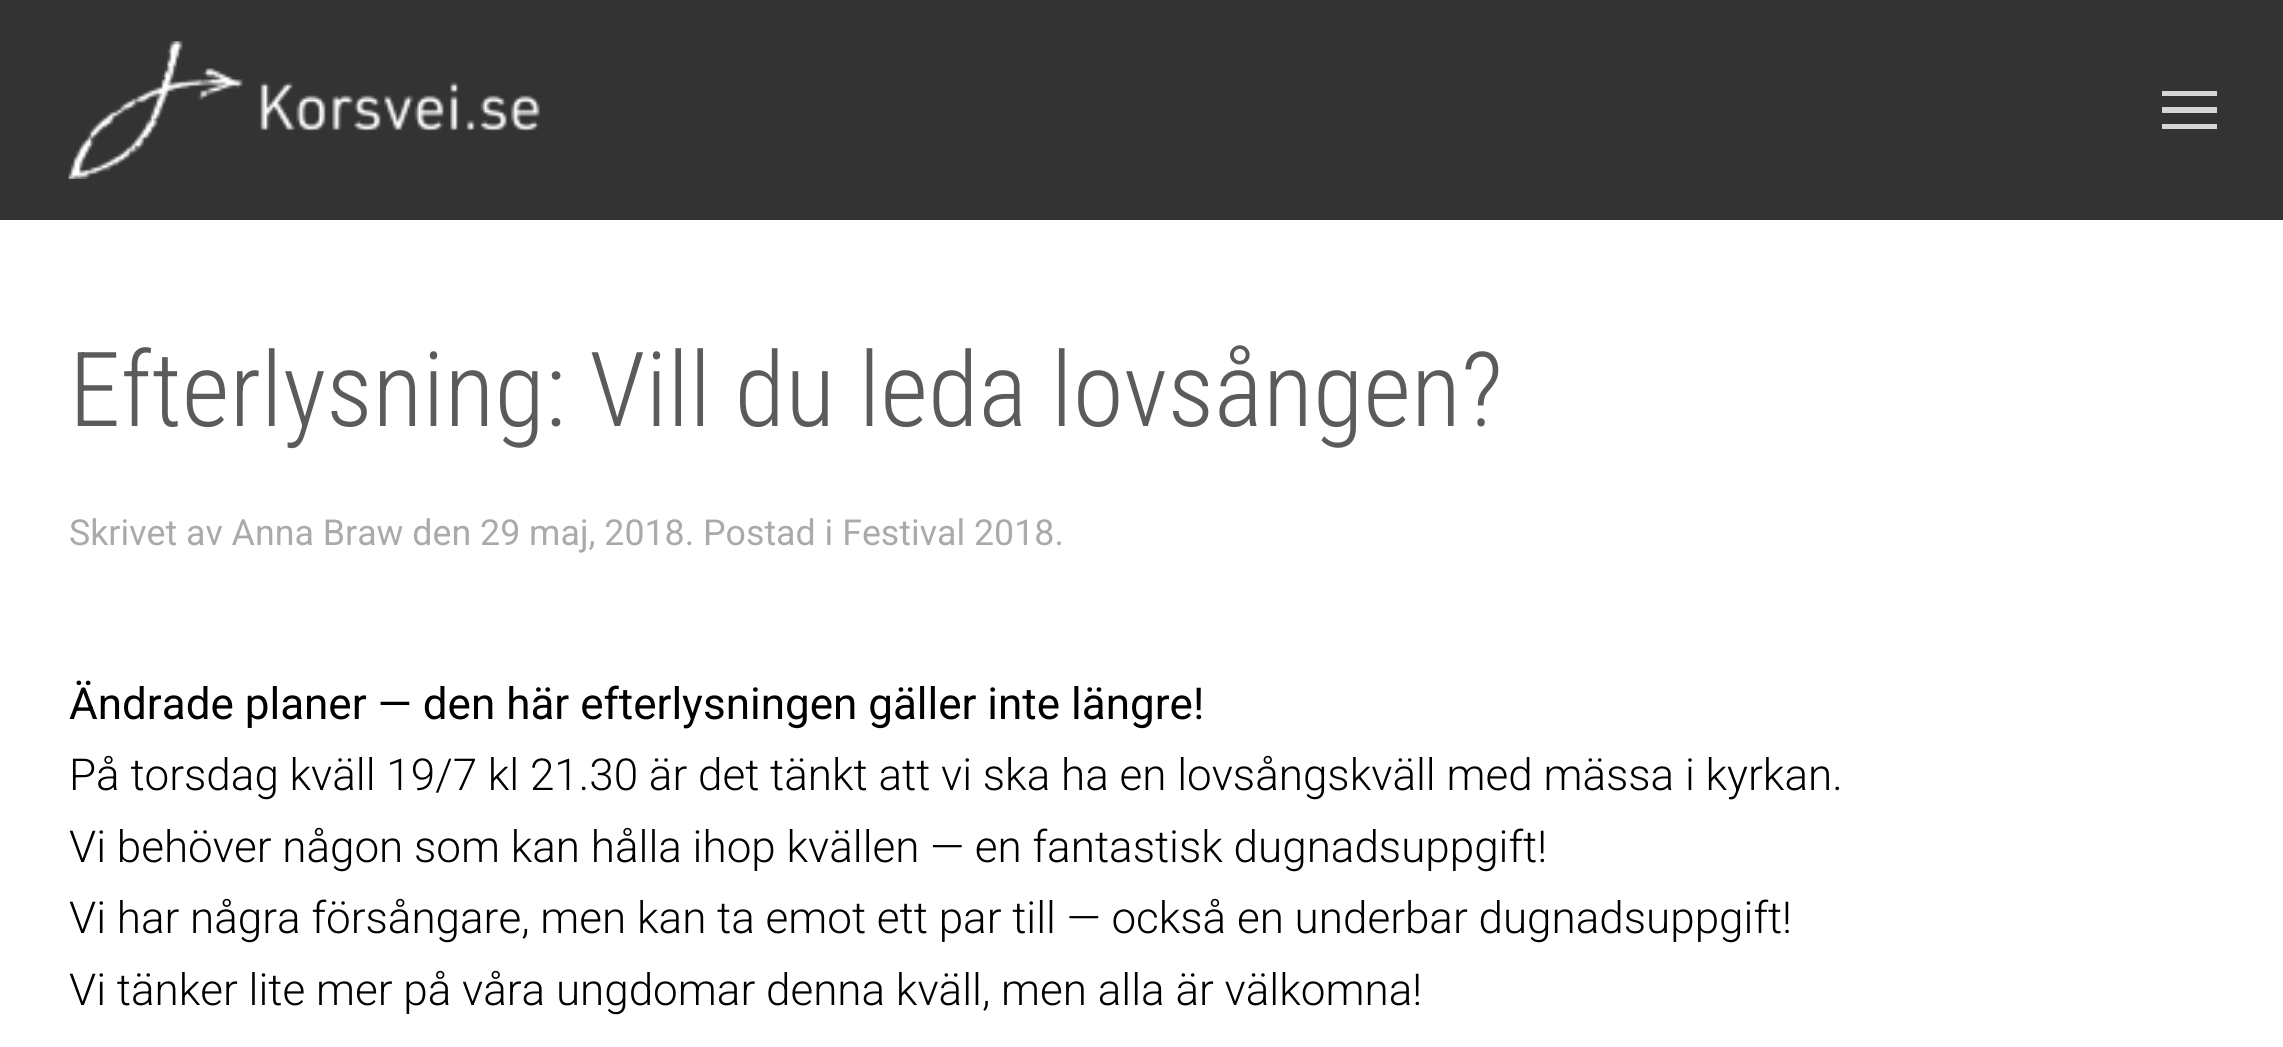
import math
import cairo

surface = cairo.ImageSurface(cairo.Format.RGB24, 2283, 1047)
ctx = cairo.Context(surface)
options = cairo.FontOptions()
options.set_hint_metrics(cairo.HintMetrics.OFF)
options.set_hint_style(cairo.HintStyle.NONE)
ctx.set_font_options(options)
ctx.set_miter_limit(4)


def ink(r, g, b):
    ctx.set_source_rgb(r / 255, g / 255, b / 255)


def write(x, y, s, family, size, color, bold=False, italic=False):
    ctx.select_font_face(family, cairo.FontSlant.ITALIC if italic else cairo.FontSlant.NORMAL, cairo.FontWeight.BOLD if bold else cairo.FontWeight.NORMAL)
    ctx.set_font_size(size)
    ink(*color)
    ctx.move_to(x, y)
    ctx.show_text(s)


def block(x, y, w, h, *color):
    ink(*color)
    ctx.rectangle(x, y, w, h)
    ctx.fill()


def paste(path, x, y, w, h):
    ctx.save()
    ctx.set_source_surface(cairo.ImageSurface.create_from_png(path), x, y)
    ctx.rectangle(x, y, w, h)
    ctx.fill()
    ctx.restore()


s1 = dict(family="Roboto Condensed Light", size=103.75, color=(91, 91, 91))
s2 = dict(family="Roboto", size=35.75, color=(170, 170, 170))
s3 = dict(family="Roboto", size=44, color=(0, 0, 0))
s4 = dict(family="Roboto Light", size=44, color=(0, 0, 0))

ink(255, 255, 255)
ctx.paint()
block(0, 0, 2283, 220, 51, 51, 51)
paste("pic1.png", 68, 41, 472, 138)
block(2162, 91, 55, 5, 214, 214, 214)
block(2162, 107, 55, 6, 214, 214, 214)
block(2162, 124, 55, 5, 214, 214, 214)
write(69, 426, "Efterlysning: Vill du leda lovsången?", **s1)
write(69, 545, "Skrivet av Anna Braw den 29 maj, 2018. Postad i Festival 2018.", **s2)
write(69, 719, "Ändrade planer — den här efterlysningen gäller inte längre!", **s3)
write(69, 790, "På torsdag kväll 19/7 kl 21.30 är det tänkt att vi ska ha en lovsångskväll med mässa i kyrkan.", **s4)
write(69, 862, "Vi behöver någon som kan hålla ihop kvällen — en fantastisk dugnadsuppgift!", **s4)
write(69, 933, "Vi har några försångare, men kan ta emot ett par till — också en underbar dugnadsuppgift!", **s4)
write(69, 1005, "Vi tänker lite mer på våra ungdomar denna kväll, men alla är välkomna!", **s4)
surface.write_to_png("screenshot.png")
